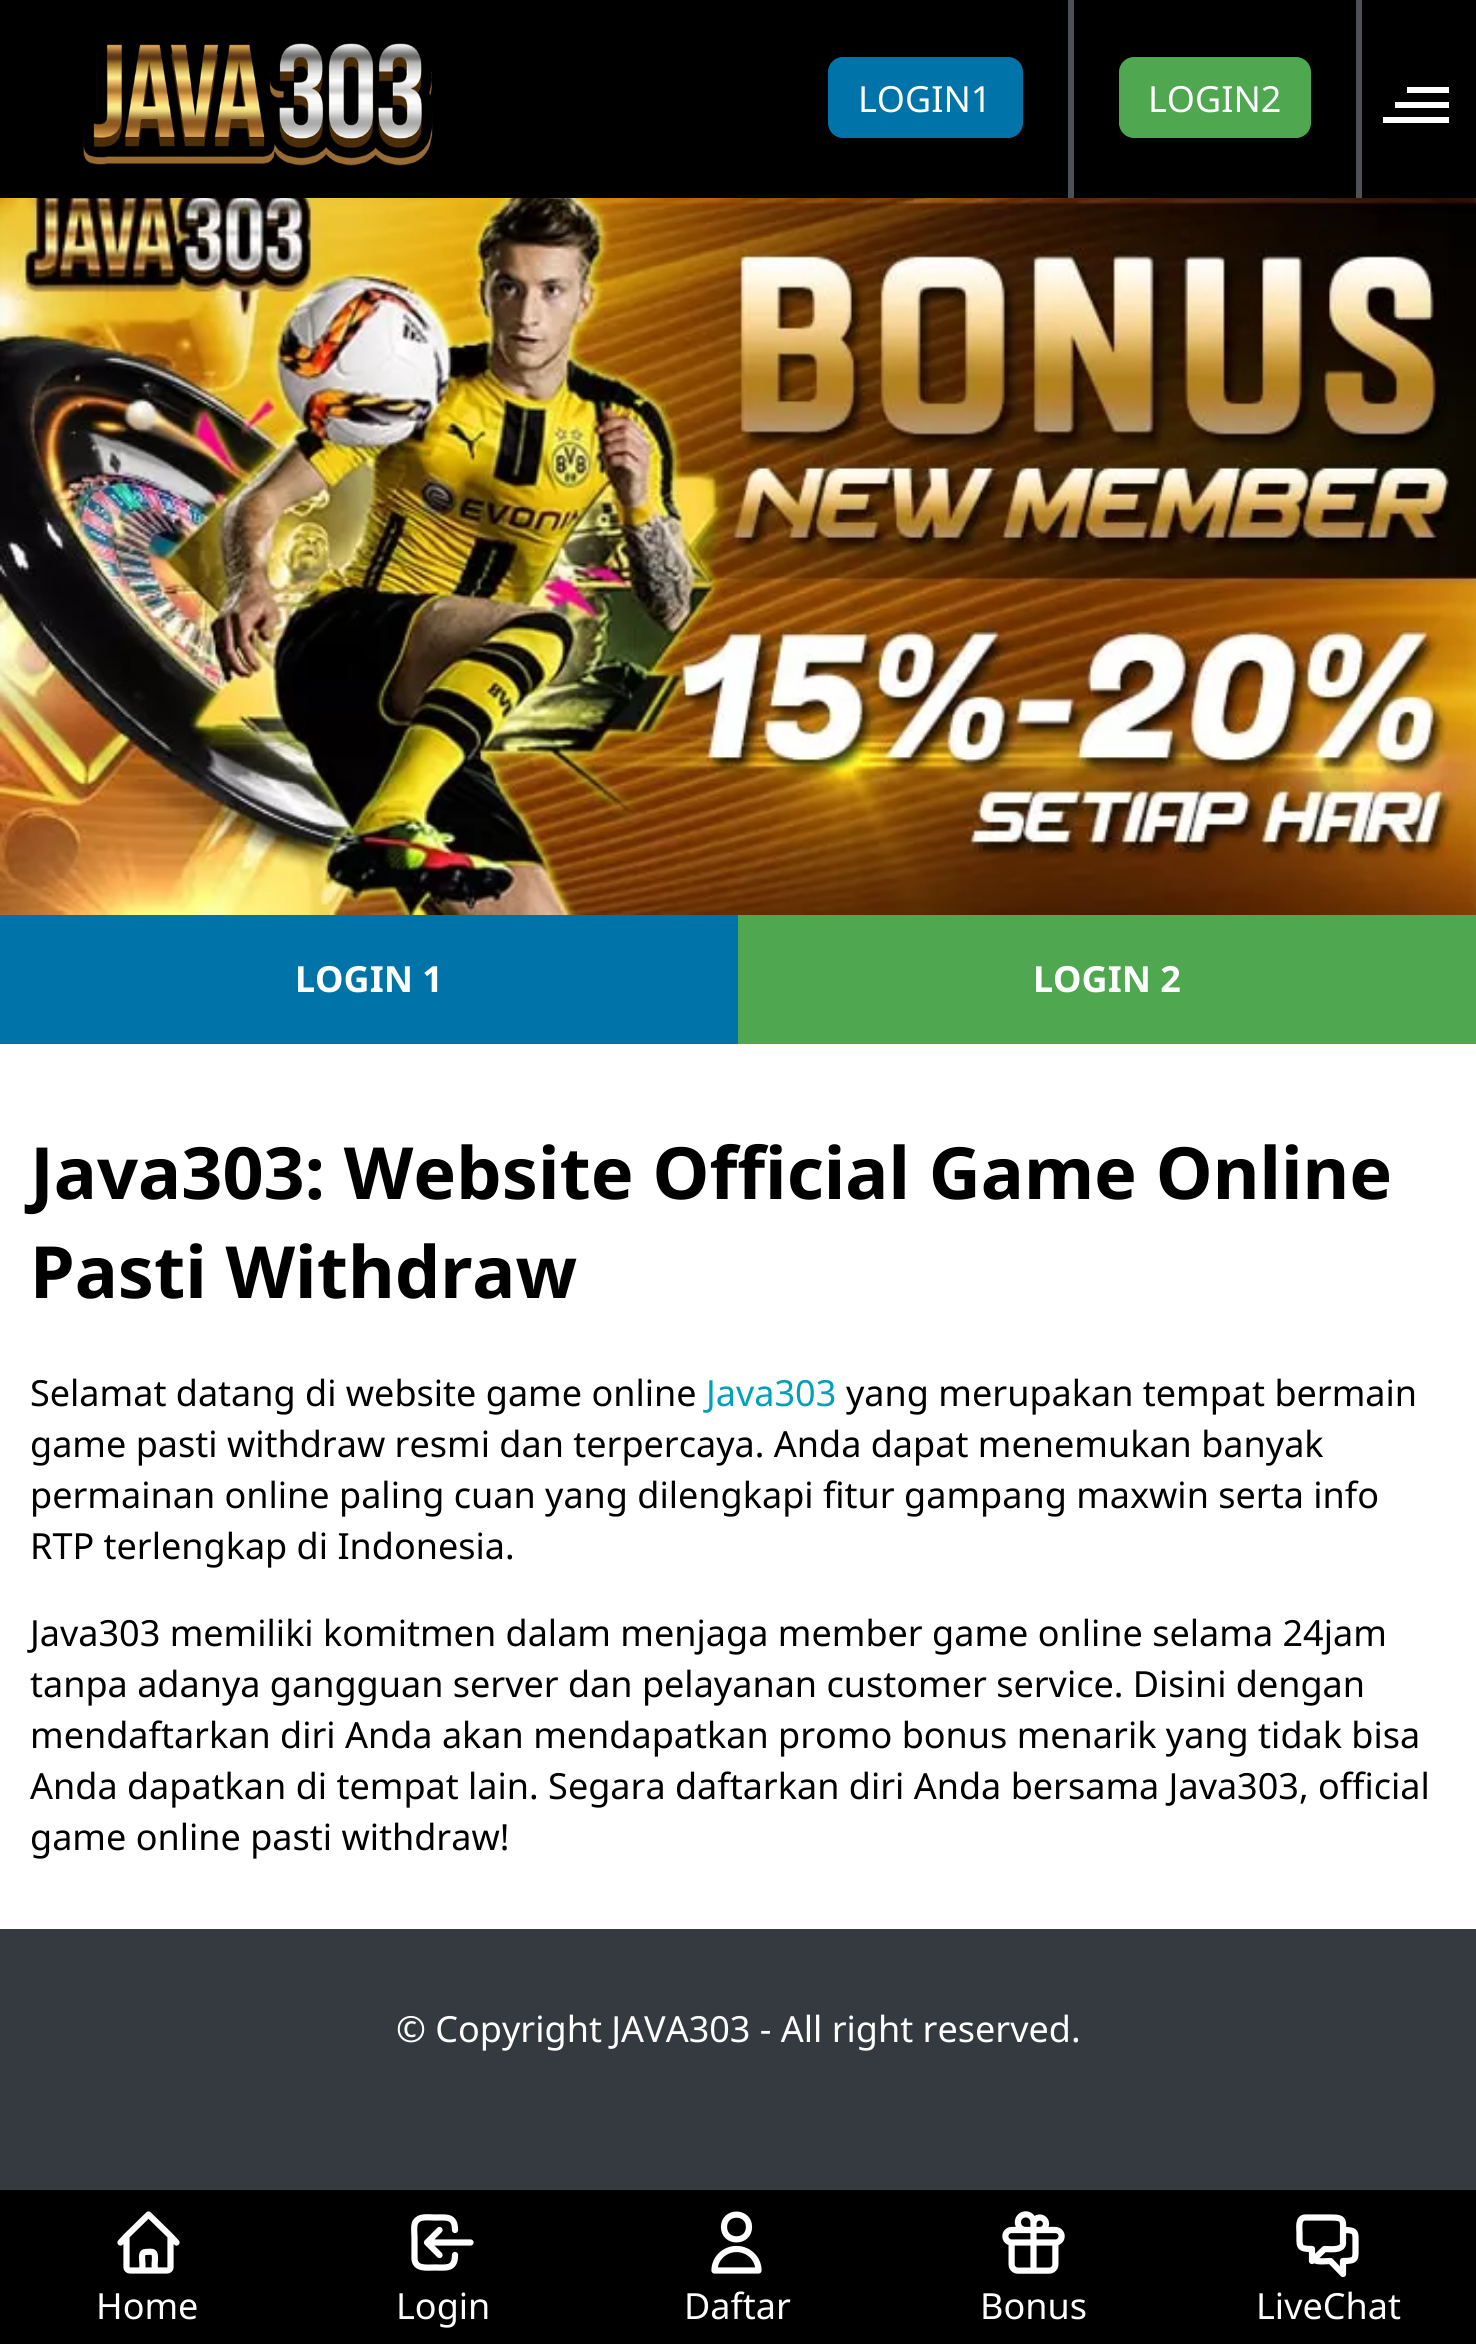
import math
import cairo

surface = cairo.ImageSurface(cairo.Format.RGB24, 1476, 2344)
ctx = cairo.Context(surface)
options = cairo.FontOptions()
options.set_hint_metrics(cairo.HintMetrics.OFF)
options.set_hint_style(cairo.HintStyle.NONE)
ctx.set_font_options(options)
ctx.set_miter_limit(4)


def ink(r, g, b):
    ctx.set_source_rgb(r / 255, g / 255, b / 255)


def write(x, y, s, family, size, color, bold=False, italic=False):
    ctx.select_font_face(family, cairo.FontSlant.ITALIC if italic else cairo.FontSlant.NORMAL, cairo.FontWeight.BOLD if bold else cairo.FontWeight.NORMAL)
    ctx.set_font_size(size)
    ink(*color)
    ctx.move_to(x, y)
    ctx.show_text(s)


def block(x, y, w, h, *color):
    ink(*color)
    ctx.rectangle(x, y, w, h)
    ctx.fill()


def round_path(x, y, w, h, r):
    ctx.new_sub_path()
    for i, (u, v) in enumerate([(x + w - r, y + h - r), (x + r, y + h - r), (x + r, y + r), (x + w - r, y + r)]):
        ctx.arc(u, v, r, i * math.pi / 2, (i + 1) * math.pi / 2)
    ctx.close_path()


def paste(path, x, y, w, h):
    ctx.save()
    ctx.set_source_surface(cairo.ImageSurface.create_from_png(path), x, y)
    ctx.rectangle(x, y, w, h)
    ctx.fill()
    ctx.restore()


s1 = dict(family="Noto Sans", size=36, color=(255, 255, 255))
s2 = dict(family="Noto Sans", size=36, color=(255, 255, 255), bold=True)
s3 = dict(family="Noto Sans", size=72, color=(0, 0, 0), bold=True)
s4 = dict(family="Noto Sans", size=36, color=(0, 0, 0))
s5 = dict(family="Noto Sans", size=36, color=(0, 160, 186))

ink(52, 58, 64)
ctx.paint()
block(0, 0, 1476, 198, 0, 0, 0)
paste("pic1.png", 83, 40, 350, 126)
block(1068, 0, 6, 198, 77, 80, 84)
ink(0, 115, 168)
round_path(828, 57, 195, 81, 15)
ctx.fill()
write(858, 112, "LOGIN1", **s1)
block(1356, 0, 6, 198, 77, 80, 84)
ink(79, 167, 79)
round_path(1119, 57, 192, 81, 15)
ctx.fill()
write(1148, 112, "LOGIN2", **s1)
block(1395, 102, 54, 6, 255, 255, 255)
block(1407, 87, 42, 6, 255, 255, 255)
block(1383, 117, 66, 6, 255, 255, 255)
paste("pic2.png", 0, 198, 1476, 717)
block(0, 915, 738, 129, 0, 115, 168)
write(295, 992, "LOGIN 1", **s2)
block(738, 915, 738, 129, 79, 167, 79)
write(1033, 992, "LOGIN 2", **s2)
block(0, 1044, 1476, 885, 255, 255, 255)
write(30, 1199, "Java303: Website Official Game Online", **s3)
write(30, 1298, "Pasti Withdraw", **s3)
write(30, 1406, "Selamat datang di website game online", **s4)
write(706, 1406, "Java303", **s5)
write(846, 1406, "yang merupakan tempat bermain", **s4)
write(30, 1457, "game pasti withdraw resmi dan terpercaya. Anda dapat menemukan banyak", **s4)
write(30, 1508, "permainan online paling cuan yang dilengkapi fitur gampang maxwin serta info", **s4)
write(30, 1559, "RTP terlengkap di Indonesia.", **s4)
write(30, 1646, "Java303 memiliki komitmen dalam menjaga member game online selama 24jam", **s4)
write(30, 1697, "tanpa adanya gangguan server dan pelayanan customer service. Disini dengan", **s4)
write(30, 1748, "mendaftarkan diri Anda akan mendapatkan promo bonus menarik yang tidak bisa", **s4)
write(30, 1799, "Anda dapatkan di tempat lain. Segara daftarkan diri Anda bersama Java303, official", **s4)
write(30, 1850, "game online pasti withdraw!", **s4)
write(396, 2042, "© Copyright JAVA303 - All right reserved.", **s1)
block(0, 2190, 1476, 154, 0, 0, 0)
ctx.new_path()
ctx.move_to(120.5, 2242.5)
ctx.line_to(126.5, 2236)
ctx.move_to(126.5, 2236)
ctx.line_to(148.5, 2214.5)
ctx.line_to(170.5, 2236)
ctx.move_to(126.5, 2236)
ctx.line_to(126.5, 2267.5)
ctx.curve_to(126.5, 2269, 128, 2270.5, 130, 2270.5)
ctx.line_to(139, 2270.5)
ctx.move_to(170.5, 2236)
ctx.line_to(176.5, 2242.5)
ctx.move_to(170.5, 2236)
ctx.line_to(170.5, 2267.5)
ctx.curve_to(170.5, 2269, 169, 2270.5, 167, 2270.5)
ctx.line_to(158, 2270.5)
ctx.move_to(139, 2270.5)
ctx.curve_to(147, 2270.5, 137.5, 2252, 145.5, 2252)
ctx.curve_to(153.5, 2251.5, 155, 2251, 155, 2259)
ctx.curve_to(155, 2262, 153, 2270.5, 158, 2270.5)
ctx.move_to(139, 2270.5)
ctx.line_to(158, 2270.5)
ink(255, 255, 255)
ctx.set_line_width(6.2)
ctx.set_line_cap(cairo.LineCap.ROUND)
ctx.set_line_join(cairo.LineJoin.ROUND)
ctx.stroke()
write(96, 2319, "Home", **s1)
ctx.new_path()
ctx.move_to(439.5, 2255)
ctx.line_to(427, 2242.5)
ctx.move_to(427, 2242.5)
ctx.line_to(439.5, 2230)
ctx.move_to(427, 2242.5)
ctx.line_to(470.5, 2242.5)
ctx.move_to(455, 2255)
ctx.curve_to(455, 2269.5, 446.5, 2267.5, 434.5, 2267.5)
ctx.curve_to(427, 2267.5, 414.5, 2269.5, 414.5, 2258)
ctx.line_to(414.5, 2237.5)
ctx.curve_to(414.5, 2233, 413.5, 2227.5, 415, 2223)
ctx.curve_to(418.5, 2215.5, 428, 2217.5, 434.5, 2217.5)
ctx.curve_to(446.5, 2217.5, 455, 2215.5, 455, 2230)
ctx.stroke()
write(396, 2319, "Login", **s1)
ctx.new_path()
ctx.move_to(749, 2227)
ctx.curve_to(749, 2243.5, 724, 2243.5, 724, 2227)
ctx.curve_to(724, 2210.5, 749, 2210.5, 749, 2227)
ctx.close_path()
ctx.move_to(736.5, 2249)
ctx.curve_to(724.5, 2249, 714.5, 2258.5, 714.5, 2270.5)
ctx.line_to(758.5, 2270.5)
ctx.curve_to(758.5, 2258.5, 748.5, 2249, 736.5, 2249)
ctx.close_path()
ctx.stroke()
write(684, 2319, "Daftar", **s1)
paste("pic3.png", 1002, 2211, 63, 63)
write(980, 2319, "Bonus", **s1)
ctx.new_path()
ctx.move_to(1343, 2230)
ctx.curve_to(1357, 2230, 1355.5, 2232, 1355.5, 2245.5)
ctx.curve_to(1355.5, 2259, 1357, 2261, 1343, 2261)
ctx.line_to(1343, 2274)
ctx.line_to(1330.5, 2261)
ctx.curve_to(1326.5, 2261, 1317, 2262.5, 1313.5, 2259.5)
ctx.move_to(1313.5, 2259.5)
ctx.line_to(1324.5, 2249)
ctx.curve_to(1329.5, 2249, 1341.5, 2251, 1343, 2244)
ctx.line_to(1343, 2233)
ctx.curve_to(1343, 2221, 1345, 2217.5, 1331.5, 2217.5)
ctx.line_to(1305.5, 2217.5)
ctx.curve_to(1297.5, 2217.5, 1299.5, 2228, 1299.5, 2233)
ctx.curve_to(1299.5, 2246.5, 1298, 2249, 1312, 2249)
ctx.line_to(1312, 2261)
ctx.close_path()
ctx.stroke()
write(1256, 2319, "LiveChat", **s1)
surface.write_to_png("screenshot.png")
